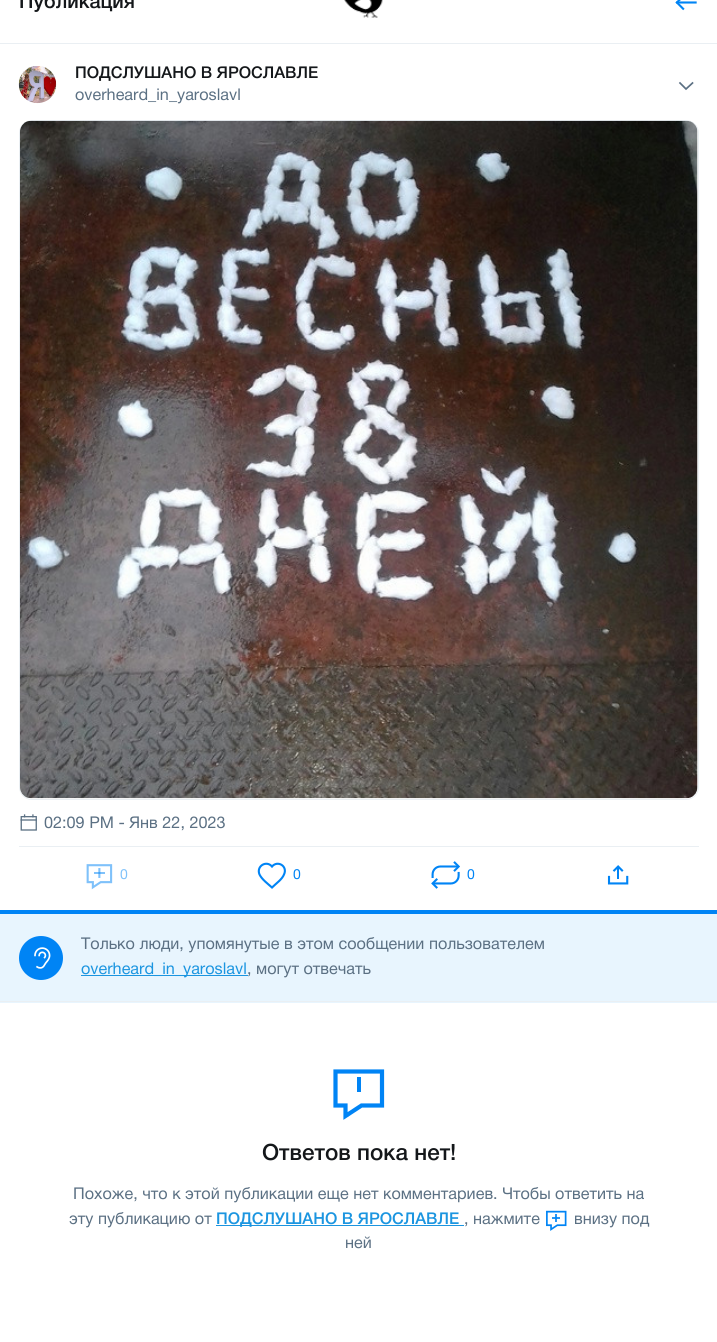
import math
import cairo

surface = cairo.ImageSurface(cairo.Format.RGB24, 717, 1342)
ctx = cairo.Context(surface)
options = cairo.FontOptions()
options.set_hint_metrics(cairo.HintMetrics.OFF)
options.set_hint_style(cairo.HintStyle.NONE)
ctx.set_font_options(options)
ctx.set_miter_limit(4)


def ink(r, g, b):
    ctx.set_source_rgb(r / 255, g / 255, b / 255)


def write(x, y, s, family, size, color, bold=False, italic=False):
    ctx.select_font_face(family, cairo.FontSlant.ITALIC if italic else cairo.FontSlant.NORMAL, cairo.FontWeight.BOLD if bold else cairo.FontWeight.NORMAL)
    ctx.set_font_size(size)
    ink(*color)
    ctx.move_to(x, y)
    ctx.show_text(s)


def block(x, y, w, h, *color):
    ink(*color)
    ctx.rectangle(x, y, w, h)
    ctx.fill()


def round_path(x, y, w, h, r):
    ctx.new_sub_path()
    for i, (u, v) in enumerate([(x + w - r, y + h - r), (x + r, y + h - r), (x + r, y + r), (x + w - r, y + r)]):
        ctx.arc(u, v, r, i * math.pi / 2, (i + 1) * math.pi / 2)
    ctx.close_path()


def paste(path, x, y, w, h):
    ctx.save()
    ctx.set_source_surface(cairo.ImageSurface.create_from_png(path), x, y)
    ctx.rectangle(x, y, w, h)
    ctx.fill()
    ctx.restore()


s1 = dict(family="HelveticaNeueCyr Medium", size=20, color=(20, 23, 26))
s2 = dict(family="HelveticaNeueCyr Medium", size=16.25, color=(20, 23, 26))
s3 = dict(family="HelveticaNeueCyr", size=16.25, color=(91, 112, 131))
s4 = dict(family="HelveticaNeueCyr", size=14, color=(128, 194, 250))
s5 = dict(family="HelveticaNeueCyr", size=14, color=(0, 132, 245))
s6 = dict(family="HelveticaNeueCyr", size=16.25, color=(27, 149, 224))
s7 = dict(family="HelveticaNeueCyr Medium", size=22.5, color=(20, 23, 26))
s8 = dict(family="HelveticaNeueCyr Medium", size=16.25, color=(27, 149, 224))

ink(255, 255, 255)
ctx.paint()
block(0, 43, 717, 1, 234, 239, 243)
write(19, 8, "Публикация", **s1)
paste("pic1.png", 344, 0, 39, 18)
paste("pic2.png", 675, 0, 22, 11)
block(0, 910, 717, 4, 0, 132, 245)
paste("pic3.png", 18, 66, 39, 38)
write(75, 78, "ПОДСЛУШАНО В ЯРОСЛАВЛЕ", **s2)
write(75, 100, "overheard_in_yaroslavl", **s3)
ctx.new_path()
ctx.move_to(680, 83)
ctx.line_to(686, 89)
ctx.line_to(692.5, 83)
ctx.set_line_width(1.7)
ctx.set_line_cap(cairo.LineCap.SQUARE)
ctx.stroke()
round_path(19.5, 120.5, 679, 679, 12.5)
ink(234, 239, 243)
ctx.set_line_width(1)
ctx.set_line_cap(cairo.LineCap.BUTT)
ctx.stroke()
paste("pic4.png", 20, 120, 678, 679)
block(19, 846, 680, 1, 234, 239, 243)
paste("pic5.png", 20, 814, 17, 17)
write(44, 828, "02:09 PM - Янв 22, 2023", **s3)
paste("pic6.png", 86, 864, 27, 26)
write(120, 879, "0", **s4)
ctx.new_path()
ctx.move_to(272, 887.5)
ctx.curve_to(267.5, 883.5, 262, 879.5, 259.5, 874.5)
ctx.curve_to(256, 866, 266.5, 860, 272, 866.5)
ctx.curve_to(277.5, 860, 288, 866, 284, 874.5)
ctx.curve_to(282, 879.5, 276, 883.5, 272, 887.5)
ctx.close_path()
ink(0, 132, 245)
ctx.set_line_width(2.1)
ctx.set_line_cap(cairo.LineCap.SQUARE)
ctx.stroke()
write(293, 879, "0", **s5)
paste("pic7.png", 431, 861, 29, 28)
write(467, 879, "0", **s5)
paste("pic8.png", 607, 865, 22, 20)
block(0, 914, 717, 89, 232, 245, 254)
block(0, 1001, 717, 1, 234, 239, 243)
ink(0, 132, 245)
ctx.arc(41, 958, 22, 0, 2 * math.pi)
ctx.fill()
paste("pic9.png", 34, 947, 17, 22)
write(81, 949, "Только люди, упомянутые в этом сообщении пользователем", **s3)
block(81, 975, 167, 1, 27, 149, 224)
write(81, 974, "overheard_in_yaroslavl", **s6)
write(247, 974, ", могут отвечать", **s3)
block(357, 1077, 4, 15, 0, 132, 245)
ctx.new_path()
ctx.move_to(382, 1071.5)
ctx.line_to(382, 1105.5)
ctx.line_to(361.5, 1105.5)
ctx.line_to(345.5, 1116)
ctx.line_to(345.5, 1105.5)
ctx.line_to(335.5, 1105.5)
ctx.line_to(335.5, 1071.5)
ctx.close_path()
ctx.set_line_width(4.2)
ctx.stroke()
write(262, 1160, "Ответов пока нет!", **s7)
write(73, 1199, "Похоже, что к этой публикации еще нет комментариев. Чтобы ответить на", **s3)
write(69, 1224, "эту публикацию от", **s3)
block(216, 1225, 248, 1, 27, 149, 224)
write(216, 1224, "ПОДСЛУШАНО В ЯРОСЛАВЛЕ", **s8)
write(464, 1224, ", нажмите", **s3)
paste("pic10.png", 546, 1210, 21, 21)
write(574, 1224, "внизу под", **s3)
write(345, 1248, "ней", **s3)
surface.write_to_png("screenshot.png")
